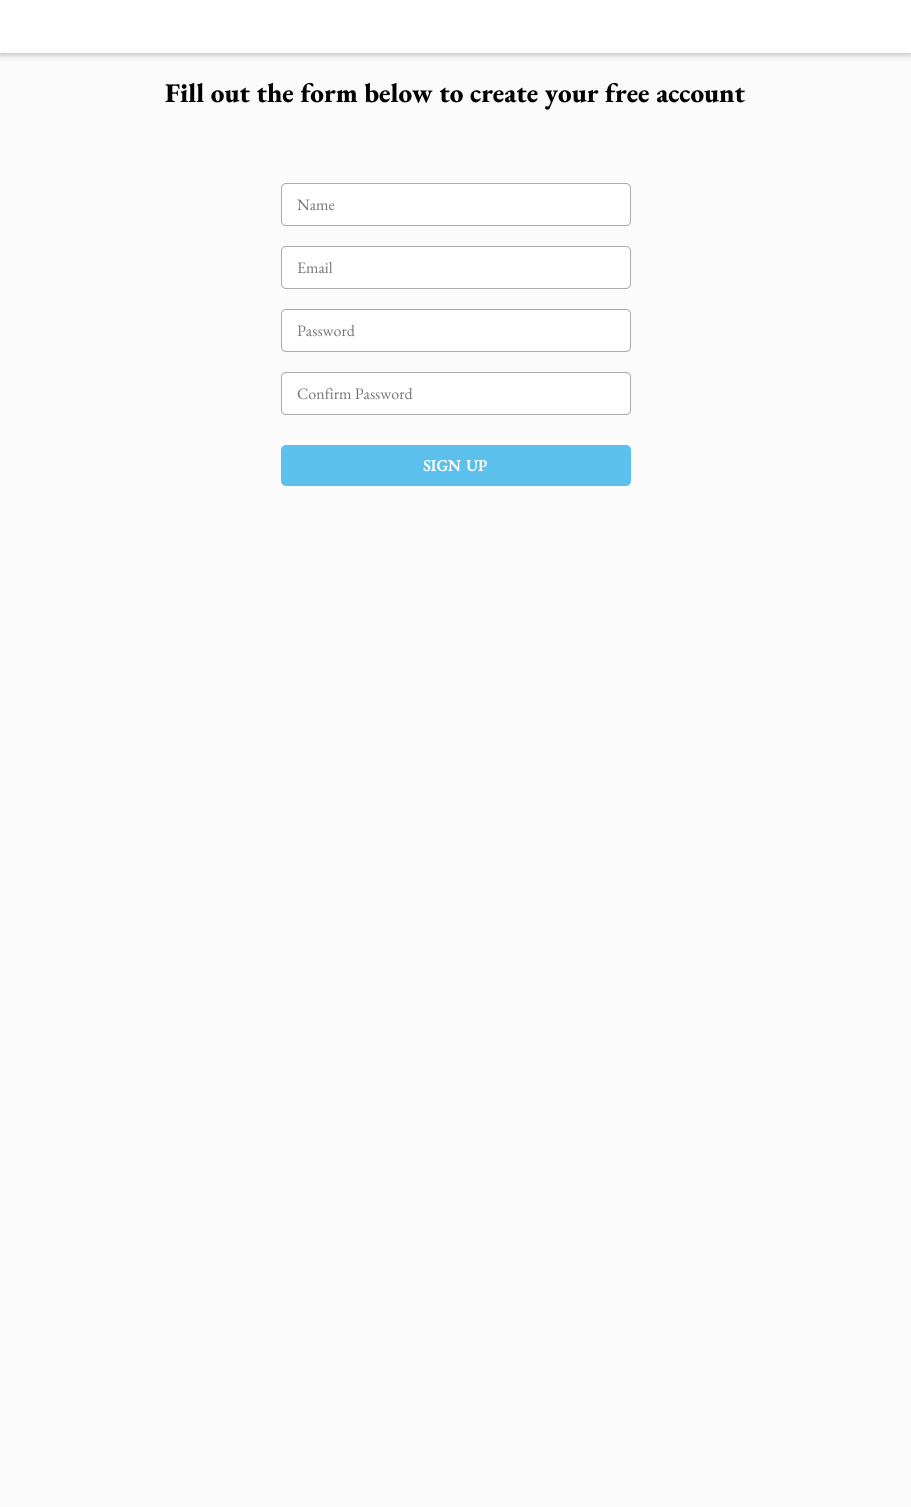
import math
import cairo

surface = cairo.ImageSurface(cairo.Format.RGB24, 911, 1507)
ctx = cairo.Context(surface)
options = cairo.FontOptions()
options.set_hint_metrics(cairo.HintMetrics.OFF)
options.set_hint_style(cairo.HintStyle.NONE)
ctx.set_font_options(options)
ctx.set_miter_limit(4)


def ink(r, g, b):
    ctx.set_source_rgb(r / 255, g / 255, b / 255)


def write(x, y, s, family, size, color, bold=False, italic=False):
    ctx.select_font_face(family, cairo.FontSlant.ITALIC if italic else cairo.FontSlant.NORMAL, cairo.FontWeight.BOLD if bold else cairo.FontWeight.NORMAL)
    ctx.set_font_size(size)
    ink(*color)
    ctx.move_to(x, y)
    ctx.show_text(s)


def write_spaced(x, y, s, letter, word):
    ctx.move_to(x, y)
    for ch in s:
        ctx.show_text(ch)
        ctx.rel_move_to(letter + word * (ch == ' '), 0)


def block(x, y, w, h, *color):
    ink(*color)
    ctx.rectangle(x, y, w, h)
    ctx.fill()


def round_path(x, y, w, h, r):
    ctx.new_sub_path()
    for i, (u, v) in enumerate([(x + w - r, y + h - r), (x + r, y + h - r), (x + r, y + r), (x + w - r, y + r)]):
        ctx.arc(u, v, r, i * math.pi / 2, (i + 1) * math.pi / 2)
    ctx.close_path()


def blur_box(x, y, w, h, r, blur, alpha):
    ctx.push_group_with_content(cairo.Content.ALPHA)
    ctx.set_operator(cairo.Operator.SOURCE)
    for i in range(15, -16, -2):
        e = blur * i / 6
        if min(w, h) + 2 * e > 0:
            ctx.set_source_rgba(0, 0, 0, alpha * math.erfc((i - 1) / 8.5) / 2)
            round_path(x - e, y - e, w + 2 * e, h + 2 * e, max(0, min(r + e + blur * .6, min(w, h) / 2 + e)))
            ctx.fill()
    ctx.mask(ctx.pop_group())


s1 = dict(family="EB Garamond ExtraBold", size=27, color=(0, 0, 0))
s2 = dict(family="EB Garamond", size=16, color=(117, 117, 117))

ink(251, 251, 251)
ctx.paint()
ink(204, 204, 204)
blur_box(0, 3, 911, 53, 0, 2.5, 1)
block(0, 0, 911, 53, 255, 255, 255)
write(165, 102, "Fill out the form below to create your free account", **s1)
ink(255, 255, 255)
round_path(281.5, 183.5, 349, 42, 4.5)
ctx.fill_preserve()
ink(170, 173, 166)
ctx.set_line_width(1)
ctx.stroke()
write(297, 210, "Name", **s2)
ink(255, 255, 255)
round_path(281.5, 246.5, 349, 42, 4.5)
ctx.fill_preserve()
ink(170, 173, 166)
ctx.stroke()
write(297, 273, "Email", **s2)
ink(255, 255, 255)
round_path(281.5, 309.5, 349, 42, 4.5)
ctx.fill_preserve()
ink(170, 173, 166)
ctx.stroke()
write(297, 336, "Password", **s2)
ink(255, 255, 255)
round_path(281.5, 372.5, 349, 42, 4.5)
ctx.fill_preserve()
ink(170, 173, 166)
ctx.stroke()
write(297, 399, "Confirm Password", **s2)
ink(91, 192, 235)
round_path(281, 445, 350, 41, 5)
ctx.fill()
ctx.select_font_face("EB Garamond", cairo.FontSlant.NORMAL, cairo.FontWeight.BOLD)
ink(255, 255, 255)
write_spaced(423, 471, "SIGN UP", 0, 2)
surface.write_to_png("screenshot.png")
